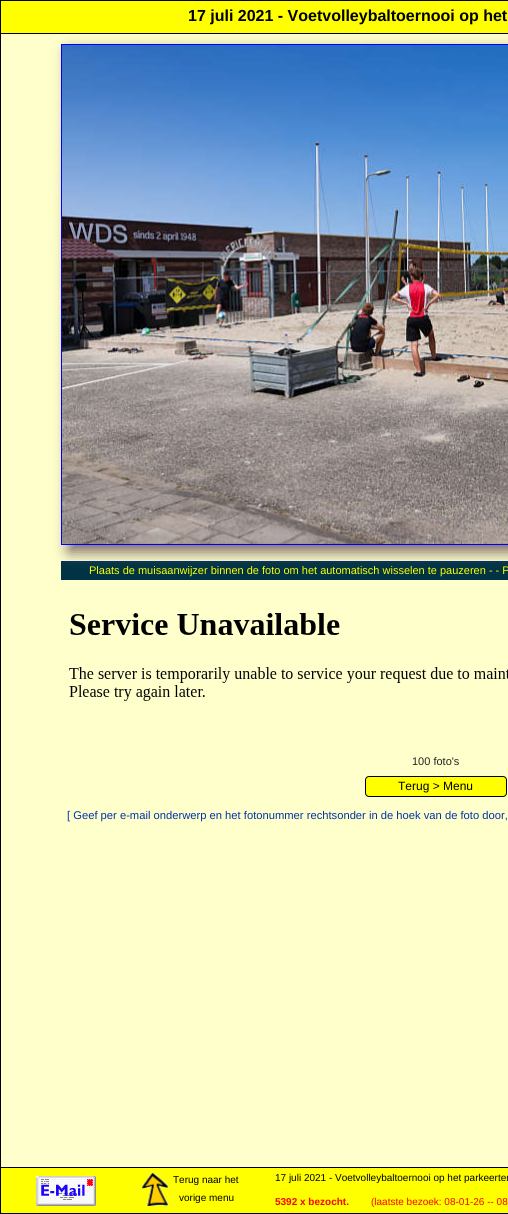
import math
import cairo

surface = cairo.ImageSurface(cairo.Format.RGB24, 508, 1214)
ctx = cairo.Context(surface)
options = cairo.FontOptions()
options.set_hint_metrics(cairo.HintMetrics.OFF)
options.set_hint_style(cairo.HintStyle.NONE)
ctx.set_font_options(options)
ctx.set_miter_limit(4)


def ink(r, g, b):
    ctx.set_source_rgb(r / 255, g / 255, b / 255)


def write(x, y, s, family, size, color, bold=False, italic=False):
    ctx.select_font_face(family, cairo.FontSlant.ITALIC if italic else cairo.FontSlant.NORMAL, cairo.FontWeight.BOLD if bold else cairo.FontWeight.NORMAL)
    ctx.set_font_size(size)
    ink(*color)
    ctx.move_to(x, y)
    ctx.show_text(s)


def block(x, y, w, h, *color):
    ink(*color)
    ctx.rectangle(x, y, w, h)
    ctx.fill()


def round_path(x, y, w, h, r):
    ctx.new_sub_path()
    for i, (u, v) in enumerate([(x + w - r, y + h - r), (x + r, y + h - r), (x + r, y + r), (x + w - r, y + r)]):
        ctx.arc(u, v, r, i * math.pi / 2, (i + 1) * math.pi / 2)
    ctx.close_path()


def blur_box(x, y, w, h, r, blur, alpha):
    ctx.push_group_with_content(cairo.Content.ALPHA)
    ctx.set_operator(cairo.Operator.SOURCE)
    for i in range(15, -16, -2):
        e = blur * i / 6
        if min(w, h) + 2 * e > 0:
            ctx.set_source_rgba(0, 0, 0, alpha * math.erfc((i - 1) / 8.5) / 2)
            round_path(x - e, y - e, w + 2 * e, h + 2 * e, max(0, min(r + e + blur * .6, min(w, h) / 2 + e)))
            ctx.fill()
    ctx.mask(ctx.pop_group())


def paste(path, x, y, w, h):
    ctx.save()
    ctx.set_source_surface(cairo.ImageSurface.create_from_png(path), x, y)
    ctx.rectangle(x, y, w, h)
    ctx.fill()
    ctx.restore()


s1 = dict(family="Liberation Sans", size=16, color=(0, 0, 0), bold=True)
s2 = dict(family="Liberation Sans", size=11, color=(255, 255, 0))
s3 = dict(family="Liberation Sans", size=11, color=(34, 34, 34))
s4 = dict(family="Liberation Sans", size=12, color=(0, 0, 0))
s5 = dict(family="Liberation Sans", size=11.2, color=(0, 51, 170))
s6 = dict(family="Liberation Sans", size=10, color=(0, 0, 0))
s7 = dict(family="Liberation Sans", size=10, color=(255, 0, 0), bold=True)
s8 = dict(family="Liberation Sans", size=10, color=(255, 0, 0))

ink(255, 255, 204)
ctx.paint()
block(0, 0, 1, 1214, 0, 0, 0)
block(61, 561, 447, 19, 0, 51, 68)
block(61, 560, 447, 1, 255, 255, 255)
ink(119, 102, 102)
blur_box(69, 51, 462, 501, 0, 7.5, 1)
block(1, 1, 507, 32, 255, 255, 0)
block(1, 0, 507, 1, 0, 0, 0)
block(1, 33, 507, 1, 0, 0, 0)
write(188, 21, "17 juli 2021 - Voetvolleybaltoernooi op het", **s1)
ctx.rectangle(61.5, 44.5, 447, 500)
ink(0, 0, 255)
ctx.set_line_width(1)
ctx.stroke()
paste("pic1.png", 62, 45, 446, 499)
write(89, 574, "Plaats de muisaanwijzer binnen de foto om het automatisch wisselen te pauzeren - - P", **s2)
paste("pic2.png", 69, 613, 439, 88)
write(412, 765, "100 foto's", **s3)
ink(255, 255, 0)
round_path(365.5, 776.5, 141, 20, 3.5)
ctx.fill_preserve()
ink(0, 0, 0)
ctx.stroke()
write(398, 790, "Terug > Menu", **s4)
write(67, 819, "[ Geef per e-mail onderwerp en het fotonummer rechtsonder in de hoek van de foto door,", **s5)
block(1, 1168, 507, 45, 255, 255, 0)
block(1, 1167, 507, 1, 0, 0, 0)
block(1, 1213, 507, 1, 0, 0, 0)
paste("pic3.png", 36, 1176, 60, 30)
paste("pic4.png", 142, 1173, 26, 33)
write(173, 1183, "Terug naar het", **s6)
write(179, 1201, "vorige menu", **s6)
write(275, 1181, "17 juli 2021 - Voetvolleybaltoernooi op het parkeerter", **s6)
write(275, 1205, "5392 x bezocht.", **s7)
write(371, 1205, "(laatste bezoek: 08-01-26 -- 08", **s8)
surface.write_to_png("screenshot.png")
